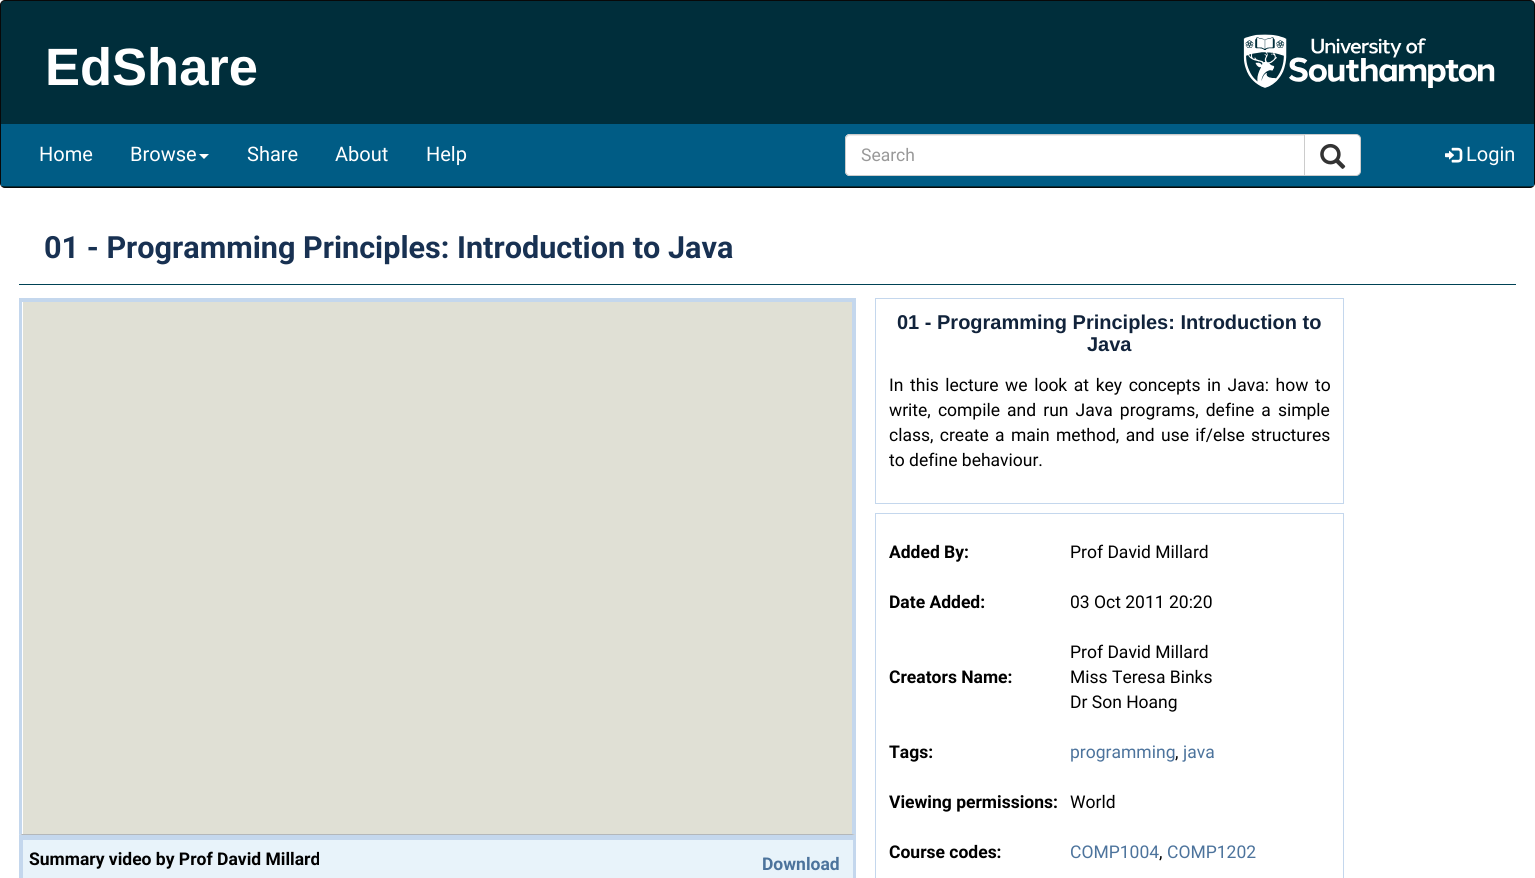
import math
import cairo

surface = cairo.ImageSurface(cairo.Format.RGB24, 1535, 878)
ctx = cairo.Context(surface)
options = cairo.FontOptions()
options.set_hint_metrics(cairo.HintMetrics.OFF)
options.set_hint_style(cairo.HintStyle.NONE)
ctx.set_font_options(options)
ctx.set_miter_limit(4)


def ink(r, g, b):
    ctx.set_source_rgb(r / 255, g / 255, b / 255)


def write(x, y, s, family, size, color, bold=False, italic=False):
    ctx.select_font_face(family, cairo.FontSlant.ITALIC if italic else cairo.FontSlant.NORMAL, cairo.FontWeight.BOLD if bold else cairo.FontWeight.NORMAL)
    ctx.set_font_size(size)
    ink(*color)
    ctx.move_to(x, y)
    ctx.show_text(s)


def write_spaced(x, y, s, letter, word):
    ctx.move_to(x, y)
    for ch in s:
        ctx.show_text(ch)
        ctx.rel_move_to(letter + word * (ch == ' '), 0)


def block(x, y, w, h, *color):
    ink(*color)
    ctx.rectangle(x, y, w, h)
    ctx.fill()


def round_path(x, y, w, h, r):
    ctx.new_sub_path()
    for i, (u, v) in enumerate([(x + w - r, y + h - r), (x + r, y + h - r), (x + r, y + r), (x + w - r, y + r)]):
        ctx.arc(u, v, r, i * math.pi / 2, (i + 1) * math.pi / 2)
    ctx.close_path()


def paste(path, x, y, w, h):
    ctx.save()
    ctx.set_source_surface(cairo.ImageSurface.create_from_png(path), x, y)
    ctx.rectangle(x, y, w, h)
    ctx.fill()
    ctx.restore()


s1 = dict(family="Liberation Sans", size=52.5, color=(255, 255, 255), bold=True)
s2 = dict(family="Roboto", size=20, color=(255, 255, 255))
s3 = dict(family="Roboto", size=17.5, color=(153, 153, 153))
s4 = dict(family="Roboto", size=30.6, color=(24, 49, 82), bold=True)
s5 = dict(family="Roboto", size=17.5, color=(0, 0, 0), bold=True)
s6 = dict(family="Roboto", size=17.5, color=(76, 115, 156), bold=True)
s7 = dict(family="Liberation Sans", size=20, color=(17, 35, 59), bold=True)
s8 = dict(family="Roboto", size=17.5, color=(0, 0, 0))
s9 = dict(family="Roboto", size=17.5, color=(76, 115, 156))

ink(255, 255, 255)
ctx.paint()
ink(0, 46, 59)
round_path(0.5, 0.5, 1534, 187, 4.5)
ctx.fill_preserve()
ink(8, 8, 8)
ctx.set_line_width(1)
ctx.stroke()
paste("pic1.png", 1243, 34, 252, 54)
write(45, 85, "EdShare", **s1)
block(1, 124, 1533, 62, 0, 92, 133)
write(39, 161, "Home", **s2)
write(130, 161, "Browse", **s2)
ctx.new_path()
ctx.move_to(199, 154)
ctx.line_to(209, 154)
ctx.line_to(204, 159)
ctx.close_path()
ctx.fill()
write(247, 161, "Share", **s2)
write(335, 161, "About", **s2)
write(426, 161, "Help", **s2)
ctx.new_path()
ctx.move_to(850, 134)
ctx.line_to(1305, 134)
ctx.line_to(1305, 176)
ctx.line_to(850, 176)
ctx.curve_to(847, 176, 845, 174, 845, 171)
ctx.line_to(845, 139)
ctx.curve_to(845, 136, 847, 134, 850, 134)
ctx.close_path()
ctx.fill()
ink(236, 236, 236)
ctx.new_path()
ctx.move_to(850, 136)
ctx.line_to(1304, 136)
ctx.line_to(1304, 135)
ctx.line_to(850, 135)
ctx.curve_to(848, 135, 846, 137, 846, 139)
ctx.line_to(846, 140)
ctx.curve_to(846, 138, 848, 136, 850, 136)
ctx.close_path()
ctx.fill()
ctx.new_path()
ctx.move_to(850, 134.5)
ctx.line_to(1304.5, 134.5)
ctx.line_to(1304.5, 175.5)
ctx.line_to(850, 175.5)
ctx.curve_to(847.5, 175.5, 845.5, 173.5, 845.5, 171)
ctx.line_to(845.5, 139)
ctx.curve_to(845.5, 136.5, 847.5, 134.5, 850, 134.5)
ctx.close_path()
ink(204, 204, 204)
ctx.stroke()
write(861, 161, "Search", **s3)
ink(255, 255, 255)
ctx.new_path()
ctx.move_to(1304.5, 134.5)
ctx.line_to(1356, 134.5)
ctx.curve_to(1358.5, 134.5, 1360.5, 136.5, 1360.5, 139)
ctx.line_to(1360.5, 171)
ctx.curve_to(1360.5, 173.5, 1358.5, 175.5, 1356, 175.5)
ctx.line_to(1304.5, 175.5)
ctx.close_path()
ctx.fill_preserve()
ink(204, 204, 204)
ctx.stroke()
paste("pic2.png", 1320, 143, 26, 26)
paste("pic3.png", 1445, 147, 18, 16)
write(1466, 161, "Login", **s2)
block(19, 284, 1497, 1, 0, 66, 85)
write(44, 258, "01 - Programming Principles: Introduction to Java", **s4)
block(23, 302, 829, 532, 224, 224, 213)
block(19, 298, 837, 4, 196, 215, 237)
ctx.new_path()
ctx.move_to(856, 298)
ctx.line_to(856, 835)
ctx.line_to(852, 834)
ctx.line_to(852, 301)
ctx.close_path()
ctx.fill()
ink(179, 183, 186)
ctx.new_path()
ctx.move_to(856, 835)
ctx.line_to(19, 835)
ctx.line_to(22, 834)
ctx.line_to(852, 834)
ctx.close_path()
ctx.fill()
ink(196, 215, 237)
ctx.new_path()
ctx.move_to(19, 835)
ctx.line_to(19, 298)
ctx.line_to(22, 301)
ctx.line_to(22, 834)
ctx.close_path()
ctx.fill()
ctx.rectangle(21, 837, 833, 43)
ctx.set_line_width(4)
ctx.stroke()
block(23, 840, 830, 38, 232, 243, 250)
block(23, 839, 830, 1, 196, 215, 237)
write(29, 865, "Summary video by Prof David Millard", **s5)
write(762, 870, "Download", **s6)
ctx.rectangle(875.5, 298.5, 468, 205)
ink(196, 215, 237)
ctx.set_line_width(1)
ctx.stroke()
write(897, 329, "01 - Programming Principles: Introduction to", **s7)
write(1087, 351, "Java", **s7)
ctx.select_font_face("Roboto")
ctx.set_font_size(17.5)
ink(0, 0, 0)
write_spaced(889, 391, "In this lecture we look at key concepts in Java: how to", 0, 2.25)
write_spaced(889, 416, "write, compile and run Java programs, define a simple", 0, 2.75)
write_spaced(889, 441, "class, create a main method, and use if/else structures", 0, 2)
write(889, 466, "to define behaviour.", **s8)
ctx.rectangle(875.5, 513.5, 468, 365)
ink(196, 215, 237)
ctx.stroke()
write(889, 558, "Added By:", **s5)
write(1070, 558, "Prof David Millard", **s8)
write(889, 608, "Date Added:", **s5)
write(1070, 608, "03 Oct 2011 20:20", **s8)
write(889, 683, "Creators Name:", **s5)
write(1070, 658, "Prof David Millard", **s8)
write(1070, 683, "Miss Teresa Binks", **s8)
write(1070, 708, "Dr Son Hoang", **s8)
write(889, 758, "Tags:", **s5)
write(1070, 758, "programming", **s9)
write(1175, 758, ",", **s8)
write(1183, 758, "java", **s9)
write(889, 808, "Viewing permissions:", **s5)
write(1070, 808, "World", **s8)
write(889, 858, "Course codes:", **s5)
write(1070, 858, "COMP1004", **s9)
write(1159, 858, ",", **s8)
write(1167, 858, "COMP1202", **s9)
surface.write_to_png("screenshot.png")
